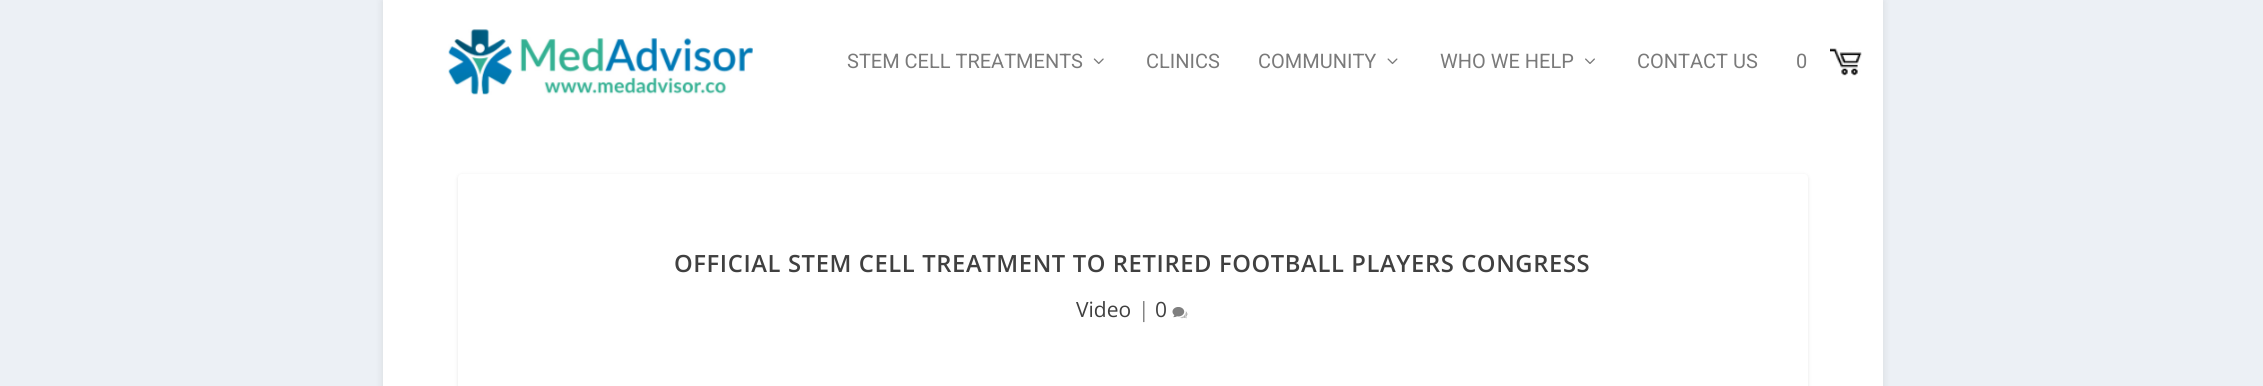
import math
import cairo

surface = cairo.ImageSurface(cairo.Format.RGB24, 2263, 386)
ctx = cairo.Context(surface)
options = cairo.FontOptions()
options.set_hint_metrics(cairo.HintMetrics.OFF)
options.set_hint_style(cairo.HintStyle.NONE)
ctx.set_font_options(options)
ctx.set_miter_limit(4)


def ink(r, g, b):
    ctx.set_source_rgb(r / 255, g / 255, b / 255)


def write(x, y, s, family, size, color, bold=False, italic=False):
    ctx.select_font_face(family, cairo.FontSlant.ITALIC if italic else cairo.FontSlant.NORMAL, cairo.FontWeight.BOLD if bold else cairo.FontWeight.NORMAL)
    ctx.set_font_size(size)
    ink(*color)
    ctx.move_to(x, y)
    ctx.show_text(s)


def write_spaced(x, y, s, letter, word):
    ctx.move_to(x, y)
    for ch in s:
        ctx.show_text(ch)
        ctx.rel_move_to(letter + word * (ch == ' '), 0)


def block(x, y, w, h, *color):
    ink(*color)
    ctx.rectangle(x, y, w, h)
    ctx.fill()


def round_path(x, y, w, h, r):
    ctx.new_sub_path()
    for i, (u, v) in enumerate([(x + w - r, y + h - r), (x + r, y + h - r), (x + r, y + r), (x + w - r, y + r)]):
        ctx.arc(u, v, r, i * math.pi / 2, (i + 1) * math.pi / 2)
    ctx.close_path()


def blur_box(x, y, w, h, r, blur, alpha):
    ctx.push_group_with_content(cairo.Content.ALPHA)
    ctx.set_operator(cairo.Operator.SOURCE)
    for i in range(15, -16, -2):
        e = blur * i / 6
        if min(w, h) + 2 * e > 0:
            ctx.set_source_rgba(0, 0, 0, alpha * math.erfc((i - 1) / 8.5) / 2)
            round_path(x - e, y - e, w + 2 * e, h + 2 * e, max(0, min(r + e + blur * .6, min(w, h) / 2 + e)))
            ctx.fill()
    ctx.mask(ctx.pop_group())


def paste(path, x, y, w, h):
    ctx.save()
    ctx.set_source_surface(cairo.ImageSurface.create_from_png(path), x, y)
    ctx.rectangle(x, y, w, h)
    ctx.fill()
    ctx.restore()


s1 = dict(family="Roboto", size=20, color=(122, 122, 122))
s2 = dict(family="Open Sans", size=21, color=(64, 64, 64))
s3 = dict(family="Open Sans", size=21, color=(128, 128, 128))

ink(236, 240, 245)
ctx.paint()
ink(0, 0, 0)
blur_box(383, 1, 1500, 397, 0, 4, 0.1)
block(383, 0, 1500, 386, 255, 255, 255)
paste("pic1.png", 448, 29, 305, 66)
write(847, 68, "STEM CELL TREATMENTS", **s1)
paste("pic2.png", 1093, 58, 11, 7)
write(1146, 68, "CLINICS", **s1)
write(1258, 68, "COMMUNITY", **s1)
paste("pic3.png", 1387, 58, 11, 7)
write(1440, 68, "WHO WE HELP", **s1)
paste("pic4.png", 1585, 58, 10, 6)
write(1637, 68, "CONTACT US", **s1)
write(1796, 68, "0", **s1)
paste("pic5.png", 1830, 48, 32, 28)
ink(0, 0, 0)
blur_box(458, 175, 1350, 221, 4, 2, 0.1)
ink(255, 255, 255)
round_path(458, 174, 1350, 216, 4)
ctx.fill()
ctx.select_font_face("Open Sans SemiBold")
ctx.set_font_size(23.75)
ink(64, 64, 64)
write_spaced(674, 272, "OFFICIAL STEM CELL TREATMENT TO RETIRED FOOTBALL PLAYERS CONGRESS", 0.62, 0)
write(1076, 317, "Video", **s2)
write(1138, 317, "|", **s3)
write(1155, 317, "0", **s2)
paste("pic6.png", 1172, 307, 16, 12)
surface.write_to_png("screenshot.png")
